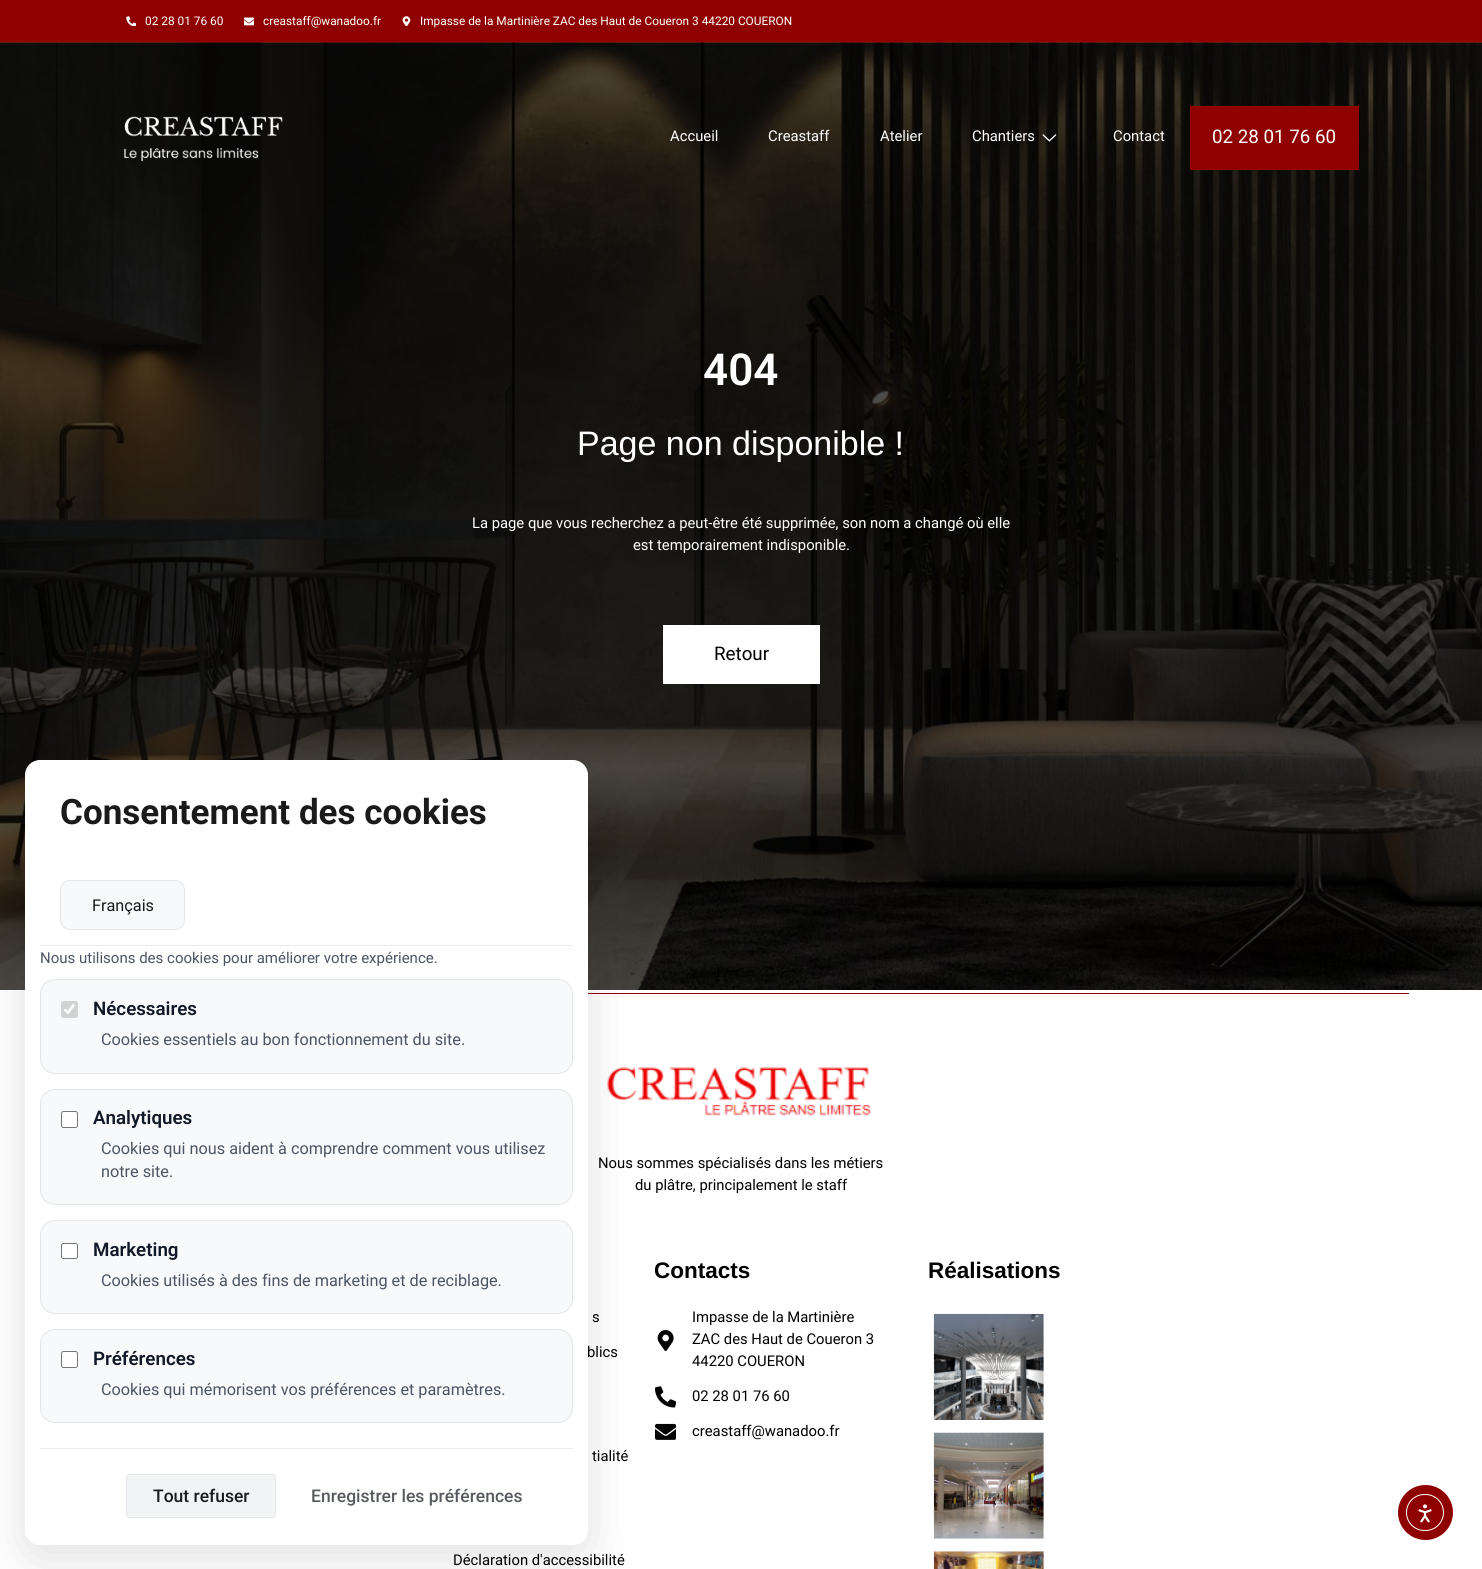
import math
import cairo

surface = cairo.ImageSurface(cairo.Format.RGB24, 1482, 1569)
ctx = cairo.Context(surface)
options = cairo.FontOptions()
options.set_hint_metrics(cairo.HintMetrics.OFF)
options.set_hint_style(cairo.HintStyle.NONE)
ctx.set_font_options(options)
ctx.set_miter_limit(4)


def ink(r, g, b):
    ctx.set_source_rgb(r / 255, g / 255, b / 255)


def write(x, y, s, family, size, color, bold=False, italic=False):
    ctx.select_font_face(family, cairo.FontSlant.ITALIC if italic else cairo.FontSlant.NORMAL, cairo.FontWeight.BOLD if bold else cairo.FontWeight.NORMAL)
    ctx.set_font_size(size)
    ink(*color)
    ctx.move_to(x, y)
    ctx.show_text(s)


def block(x, y, w, h, *color):
    ink(*color)
    ctx.rectangle(x, y, w, h)
    ctx.fill()


def round_path(x, y, w, h, r):
    ctx.new_sub_path()
    for i, (u, v) in enumerate([(x + w - r, y + h - r), (x + r, y + h - r), (x + r, y + r), (x + w - r, y + r)]):
        ctx.arc(u, v, r, i * math.pi / 2, (i + 1) * math.pi / 2)
    ctx.close_path()


def blur_box(x, y, w, h, r, blur, alpha):
    ctx.push_group_with_content(cairo.Content.ALPHA)
    ctx.set_operator(cairo.Operator.SOURCE)
    for i in range(15, -16, -2):
        e = blur * i / 6
        if min(w, h) + 2 * e > 0:
            ctx.set_source_rgba(0, 0, 0, alpha * math.erfc((i - 1) / 8.5) / 2)
            round_path(x - e, y - e, w + 2 * e, h + 2 * e, max(0, min(r + e + blur * .6, min(w, h) / 2 + e)))
            ctx.fill()
    ctx.mask(ctx.pop_group())


def paste(path, x, y, w, h):
    ctx.save()
    ctx.set_source_surface(cairo.ImageSurface.create_from_png(path), x, y)
    ctx.rectangle(x, y, w, h)
    ctx.fill()
    ctx.restore()


s1 = dict(family="Roboto", size=11.85, color=(255, 255, 255))
s2 = dict(family="Roboto", size=14.8, color=(255, 255, 255))
s3 = dict(family="Roboto", size=18.75, color=(255, 255, 255))
s4 = dict(family="Roboto SemiBold", size=44, color=(255, 255, 255))
s5 = dict(family="Liberation Sans", size=34, color=(255, 255, 255))
s6 = dict(family="Roboto", size=18.75, color=(0, 0, 0))
s7 = dict(family="Roboto", size=14.8, color=(0, 0, 0))
s8 = dict(family="Roboto", size=35, color=(26, 26, 26), bold=True)
s9 = dict(family="Roboto", size=16.25, color=(26, 26, 26))
s10 = dict(family="Roboto", size=15, color=(75, 85, 99))
s11 = dict(family="Roboto SemiBold", size=18.75, color=(17, 24, 39))
s12 = dict(family="Roboto", size=16.25, color=(75, 85, 99))
s13 = dict(family="Roboto Medium", size=17.5, color=(26, 26, 26))
s14 = dict(family="Roboto Medium", size=17.5, color=(87, 90, 95))
s15 = dict(family="Liberation Sans", size=22.5, color=(0, 0, 0), bold=True)

ink(255, 255, 255)
ctx.paint()
block(0, 0, 1482, 43, 143, 1, 1)
paste("pic1.png", 126, 16, 10, 10)
write(145, 25, "02 28 01 76 60", **s1)
paste("pic2.png", 244, 17, 10, 9)
write(263, 25, "creastaff@wanadoo.fr", **s1)
paste("pic3.png", 402, 16, 9, 10)
write(420, 25, "Impasse de la Martinière ZAC des Haut de Coueron 3 44220 COUERON", **s1)
paste("pic6.png", 0, 42, 1482, 948)
paste("pic4.png", 124, 116, 159, 46)
write(670, 141, "Accueil", **s2)
write(768, 141, "Creastaff", **s2)
write(880, 141, "Atelier", **s2)
write(972, 141, "Chantiers", **s2)
paste("pic5.png", 1042, 134, 15, 8)
write(1113, 141, "Contact", **s2)
block(1190, 106, 169, 64, 143, 1, 1)
write(1212, 143, "02 28 01 76 60", **s3)
write(703, 385, "404", **s4)
write(577, 455, "Page non disponible !", **s5)
write(472, 528, "La page que vous recherchez a peut-être été supprimée, son nom a changé où elle", **s2)
write(633, 550, "est temporairement indisponible.", **s2)
block(663, 625, 157, 59, 255, 255, 255)
write(714, 660, "Retour", **s6)
block(588, 993, 821, 1, 143, 1, 1)
paste("pic7.png", 607, 1067, 265, 49)
paste("pic8.png", 657, 1330, 17, 21)
paste("pic9.png", 655, 1386, 21, 22)
paste("pic10.png", 655, 1423, 21, 17)
ink(0, 0, 0)
blur_box(25, 773, 563, 785, 15, 25, 0.12)
write(587, 1357, "blics", **s7)
ink(255, 255, 255)
round_path(25, 760, 563, 785, 15)
ctx.fill()
block(40, 945, 533, 1, 235, 235, 235)
write(60, 824, "Consentement des cookies", **s8)
ink(248, 249, 250)
round_path(60, 880, 125, 50, 10)
ctx.fill()
round_path(60.5, 880.5, 124, 49, 9.5)
ctx.set_source_rgba(0, 0, 0, 0.08)
ctx.set_line_width(1)
ctx.stroke()
write(92, 911, "Français", **s9)
write(40, 963, "Nous utilisons des cookies pour améliorer votre expérience.", **s10)
ink(248, 249, 250)
round_path(40, 979, 533, 95, 15)
ctx.fill()
round_path(40.5, 979.5, 532, 94, 14.5)
ctx.set_source_rgba(0, 0, 0, 0.08)
ctx.stroke()
ink(209, 210, 210)
round_path(61, 1001, 17, 17, 2.5)
ctx.fill()
ctx.new_path()
ctx.move_to(64.5, 1009.5)
ctx.line_to(68, 1012.5)
ctx.line_to(74, 1004.5)
ink(255, 255, 255)
ctx.set_line_width(2.6)
ctx.stroke()
write(93, 1015, "Nécessaires", **s11)
write(101, 1045, "Cookies essentiels au bon fonctionnement du site.", **s12)
ink(248, 249, 250)
round_path(40, 1089, 533, 116, 15)
ctx.fill()
round_path(40.5, 1089.5, 532, 115, 14.5)
ctx.set_source_rgba(0, 0, 0, 0.08)
ctx.set_line_width(1)
ctx.stroke()
ink(255, 255, 255)
round_path(61.5, 1111.5, 16, 16, 2)
ctx.fill_preserve()
ink(118, 118, 118)
ctx.stroke()
write(93, 1124, "Analytiques", **s11)
write(101, 1154, "Cookies qui nous aident à comprendre comment vous utilisez", **s12)
write(101, 1177, "notre site.", **s12)
ink(248, 249, 250)
round_path(40, 1220, 533, 94, 15)
ctx.fill()
round_path(40.5, 1220.5, 532, 93, 14.5)
ctx.set_source_rgba(0, 0, 0, 0.08)
ctx.stroke()
ink(255, 255, 255)
round_path(61.5, 1243.5, 16, 15, 2)
ctx.fill_preserve()
ink(118, 118, 118)
ctx.stroke()
write(93, 1256, "Marketing", **s11)
write(101, 1286, "Cookies utilisés à des fins de marketing et de reciblage.", **s12)
ink(248, 249, 250)
round_path(40, 1329, 533, 94, 15)
ctx.fill()
round_path(40.5, 1329.5, 532, 93, 14.5)
ctx.set_source_rgba(0, 0, 0, 0.08)
ctx.stroke()
ink(255, 255, 255)
round_path(61.5, 1351.5, 16, 16, 2)
ctx.fill_preserve()
ink(118, 118, 118)
ctx.stroke()
write(93, 1365, "Préférences", **s11)
write(101, 1395, "Cookies qui mémorisent vos préférences et paramètres.", **s12)
block(40, 1448, 533, 1, 235, 235, 235)
ink(241, 243, 245)
round_path(126.5, 1474.5, 149, 43, 3.5)
ctx.fill_preserve()
ink(228, 231, 235)
ctx.stroke()
write(153, 1502, "Tout refuser", **s13)
write(311, 1502, "Enregistrer les préférences", **s14)
write(598, 1168, "Nous sommes spécialisés dans les métiers", **s7)
write(635, 1190, "du plâtre, principalement le staff", **s7)
write(592, 1322, "s", **s7)
write(592, 1461, "tialité", **s7)
write(453, 1565, "Déclaration d'accessibilité", **s7)
write(654, 1278, "Contacts", **s15)
write(692, 1322, "Impasse de la Martinière", **s7)
write(692, 1344, "ZAC des Haut de Coueron 3", **s7)
write(692, 1366, "44220 COUERON", **s7)
write(692, 1401, "02 28 01 76 60", **s7)
write(692, 1436, "creastaff@wanadoo.fr", **s7)
write(928, 1278, "Réalisations", **s15)
paste("pic11.png", 933, 1313, 111, 107)
paste("pic12.png", 933, 1432, 111, 107)
paste("pic13.png", 933, 1551, 111, 18)
ink(143, 1, 1)
ctx.arc(1425.5, 1512.5, 27.5, 0, 2 * math.pi)
ctx.fill()
round_path(1406.5, 1494.5, 37, 36, 18)
ink(255, 255, 255)
ctx.stroke()
paste("pic14.png", 1418, 1504, 14, 19)
surface.write_to_png("screenshot.png")
